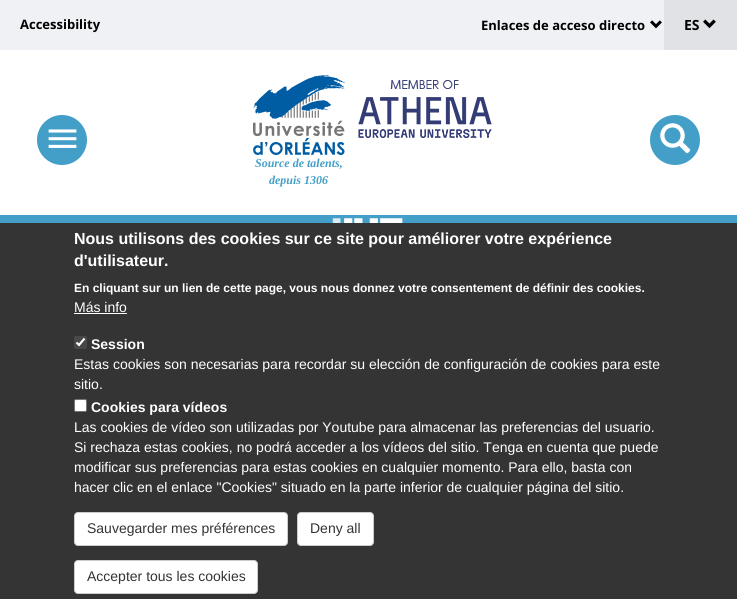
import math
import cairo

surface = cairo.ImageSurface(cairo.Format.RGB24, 737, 599)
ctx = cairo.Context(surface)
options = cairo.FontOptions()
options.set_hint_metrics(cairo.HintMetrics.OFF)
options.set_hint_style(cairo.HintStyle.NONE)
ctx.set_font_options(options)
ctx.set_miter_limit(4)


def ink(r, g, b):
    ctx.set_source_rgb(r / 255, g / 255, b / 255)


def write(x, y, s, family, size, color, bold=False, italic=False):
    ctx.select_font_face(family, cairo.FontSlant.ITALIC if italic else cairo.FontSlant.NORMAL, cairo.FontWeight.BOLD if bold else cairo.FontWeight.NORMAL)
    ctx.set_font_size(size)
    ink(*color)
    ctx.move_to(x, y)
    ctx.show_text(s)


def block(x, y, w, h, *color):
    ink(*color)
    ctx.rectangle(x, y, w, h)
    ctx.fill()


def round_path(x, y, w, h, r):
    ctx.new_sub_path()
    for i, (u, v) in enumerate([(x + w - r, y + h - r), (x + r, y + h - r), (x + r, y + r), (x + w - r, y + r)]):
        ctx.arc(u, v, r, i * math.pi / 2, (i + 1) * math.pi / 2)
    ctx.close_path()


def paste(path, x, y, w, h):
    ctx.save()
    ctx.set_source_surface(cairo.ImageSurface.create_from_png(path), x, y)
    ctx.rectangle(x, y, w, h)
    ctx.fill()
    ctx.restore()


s1 = dict(family="Open Sans", size=13, color=(0, 0, 0), bold=True)
s2 = dict(family="Open Sans", size=14, color=(0, 0, 0), bold=True)
s3 = dict(family="Liberation Serif", size=12, color=(67, 159, 199), bold=True, italic=True)
s4 = dict(family="Liberation Sans", size=16, color=(255, 255, 255), bold=True)
s5 = dict(family="Liberation Sans", size=12, color=(255, 255, 255), bold=True)
s6 = dict(family="Liberation Sans", size=14, color=(255, 255, 255))
s7 = dict(family="Liberation Sans", size=14, color=(255, 255, 255), bold=True)
s8 = dict(family="Liberation Sans", size=14, color=(51, 51, 51))

ink(255, 255, 255)
ctx.paint()
block(0, 0, 664, 50, 239, 241, 245)
write(20, 29, "Accessibility", **s1)
write(481, 30, "Enlaces de acceso directo", **s1)
paste("pic1.png", 650, 20, 12, 9)
block(664, 0, 73, 50, 224, 226, 229)
write(684, 30, "ES", **s2)
paste("pic2.png", 703, 19, 13, 10)
ink(67, 159, 199)
ctx.arc(62, 140, 25, 0, 2 * math.pi)
ctx.fill()
paste("pic3.png", 48, 129, 29, 19)
ctx.arc(675, 140, 25, 0, 2 * math.pi)
ctx.fill()
paste("pic4.png", 660, 123, 31, 31)
paste("pic5.png", 358, 80, 134, 58)
paste("pic6.png", 253, 75, 92, 80)
write(255, 167, "Source de talents,", **s3)
write(269, 184, "depuis 1306", **s3)
block(0, 215, 737, 8, 67, 159, 199)
paste("pic7.png", 332, 218, 71, 5)
block(0, 223, 737, 376, 53, 52, 53)
write(74, 244, "Nous utilisons des cookies sur ce site pour améliorer votre expérience", **s4)
write(74, 266, "d'utilisateur.", **s4)
write(74, 292, "En cliquant sur un lien de cette page, vous nous donnez votre consentement de définir des cookies.", **s5)
write(74, 312, "Más info", **s6)
block(74, 313, 53, 1, 255, 255, 255)
ink(73, 72, 73)
round_path(74, 336, 13, 13, 2)
ctx.fill()
ctx.new_path()
ctx.move_to(76.5, 342.5)
ctx.line_to(79, 345)
ctx.line_to(84.5, 338.5)
ink(255, 255, 255)
ctx.set_line_width(2.1)
ctx.stroke()
write(91, 349, "Session", **s7)
write(74, 369, "Estas cookies son necesarias para recordar su elección de configuración de cookies para este", **s6)
write(74, 389, "sitio.", **s6)
round_path(74.5, 399.5, 12, 12, 1.5)
ctx.fill_preserve()
ink(118, 118, 118)
ctx.set_line_width(1)
ctx.stroke()
write(91, 412, "Cookies para vídeos", **s7)
write(74, 432, "Las cookies de vídeo son utilizadas por Youtube para almacenar las preferencias del usuario.", **s6)
write(74, 452, "Si rechaza estas cookies, no podrá acceder a los vídeos del sitio. Tenga en cuenta que puede", **s6)
write(74, 472, "modificar sus preferencias para estas cookies en cualquier momento. Para ello, basta con", **s6)
write(74, 492, "hacer clic en el enlace \"Cookies\" situado en la parte inferior de cualquier página del sitio.", **s6)
round_path(74.5, 512.5, 213, 33, 3.5)
ctx.fill_preserve()
ink(204, 204, 204)
ctx.stroke()
write(87, 533, "Sauvegarder mes préférences", **s8)
ink(255, 255, 255)
round_path(297.5, 512.5, 76, 33, 3.5)
ctx.fill_preserve()
ink(204, 204, 204)
ctx.stroke()
write(310, 533, "Deny all", **s8)
ink(255, 255, 255)
round_path(74.5, 560.5, 183, 33, 3.5)
ctx.fill_preserve()
ink(204, 204, 204)
ctx.stroke()
write(87, 581, "Accepter tous les cookies", **s8)
surface.write_to_png("screenshot.png")
